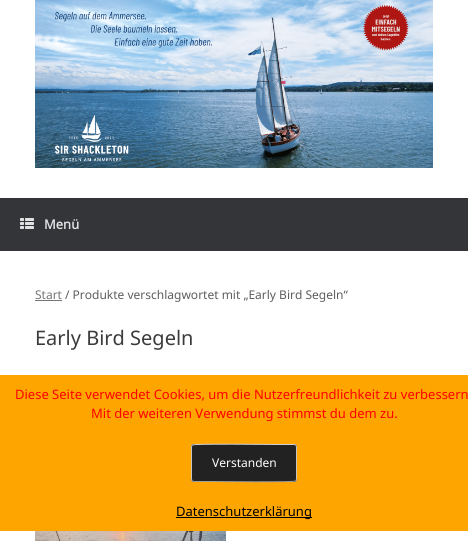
import math
import cairo

surface = cairo.ImageSurface(cairo.Format.RGB24, 468, 541)
ctx = cairo.Context(surface)
options = cairo.FontOptions()
options.set_hint_metrics(cairo.HintMetrics.OFF)
options.set_hint_style(cairo.HintStyle.NONE)
ctx.set_font_options(options)
ctx.set_miter_limit(4)


def ink(r, g, b):
    ctx.set_source_rgb(r / 255, g / 255, b / 255)


def write(x, y, s, family, size, color, bold=False, italic=False):
    ctx.select_font_face(family, cairo.FontSlant.ITALIC if italic else cairo.FontSlant.NORMAL, cairo.FontWeight.BOLD if bold else cairo.FontWeight.NORMAL)
    ctx.set_font_size(size)
    ink(*color)
    ctx.move_to(x, y)
    ctx.show_text(s)


def block(x, y, w, h, *color):
    ink(*color)
    ctx.rectangle(x, y, w, h)
    ctx.fill()


def round_path(x, y, w, h, r):
    ctx.new_sub_path()
    for i, (u, v) in enumerate([(x + w - r, y + h - r), (x + r, y + h - r), (x + r, y + r), (x + w - r, y + r)]):
        ctx.arc(u, v, r, i * math.pi / 2, (i + 1) * math.pi / 2)
    ctx.close_path()


def paste(path, x, y, w, h):
    ctx.save()
    ctx.set_source_surface(cairo.ImageSurface.create_from_png(path), x, y)
    ctx.rectangle(x, y, w, h)
    ctx.fill()
    ctx.restore()


s1 = dict(family="Noto Sans", size=13, color=(226, 226, 226), bold=True)
s2 = dict(family="Noto Sans", size=12, color=(118, 118, 118))
s3 = dict(family="Noto Sans", size=12, color=(94, 94, 94))
s4 = dict(family="Noto Sans", size=20, color=(59, 59, 59))
s5 = dict(family="Noto Sans", size=13, color=(255, 0, 0))
s6 = dict(family="Noto Sans", size=12, color=(255, 255, 255))
s7 = dict(family="Noto Sans", size=13, color=(0, 0, 0))

ink(255, 255, 255)
ctx.paint()
paste("pic1.png", 35, 0, 398, 168)
block(0, 198, 468, 53, 52, 53, 56)
paste("pic2.png", 20, 218, 14, 11)
write(44, 229, "Menü", **s1)
write(35, 299, "Start", **s2)
block(35, 300, 27, 1, 118, 118, 118)
write(65, 299, "/ Produkte verschlagwortet mit „Early Bird Segeln“", **s3)
write(35, 345, "Early Bird Segeln", **s4)
paste("pic3.png", 35, 531, 191, 10)
block(0, 375, 468, 156, 255, 165, 0)
write(15, 399, "Diese Seite verwendet Cookies, um die Nutzerfreundlichkeit zu verbessern", **s5)
write(91, 418, "Mit der weiteren Verwendung stimmst du dem zu.", **s5)
ink(34, 34, 34)
round_path(191, 444, 106, 38, 3)
ctx.fill()
ctx.new_path()
ctx.move_to(192, 445)
ctx.line_to(192.5, 445)
ctx.curve_to(194.5, 443.5, 268.5, 444.5, 277.5, 444.5)
ctx.line_to(294, 444.5)
ctx.line_to(296, 445)
ink(210, 210, 210)
ctx.set_line_width(1)
ctx.stroke()
ctx.new_path()
ctx.move_to(296, 445)
ctx.curve_to(296, 445.5, 296.5, 446.5, 296.5, 447)
ctx.line_to(296.5, 479)
ctx.curve_to(296.5, 479.5, 296, 480.5, 296, 481)
ink(195, 195, 195)
ctx.stroke()
ctx.new_path()
ctx.move_to(296, 481)
ctx.line_to(295.5, 481)
ctx.curve_to(293.5, 482.5, 219.5, 481.5, 210.5, 481.5)
ctx.line_to(194, 481.5)
ctx.line_to(192, 481)
ink(159, 159, 159)
ctx.stroke()
ctx.new_path()
ctx.move_to(192, 481)
ctx.curve_to(192, 480.5, 191.5, 479.5, 191.5, 479)
ctx.line_to(191.5, 447)
ctx.curve_to(191.5, 446.5, 192, 445.5, 192, 445)
ink(195, 195, 195)
ctx.stroke()
write(212, 467, "Verstanden", **s6)
block(176, 517, 136, 1, 0, 0, 0)
write(176, 516, "Datenschutzerklärung", **s7)
surface.write_to_png("screenshot.png")
